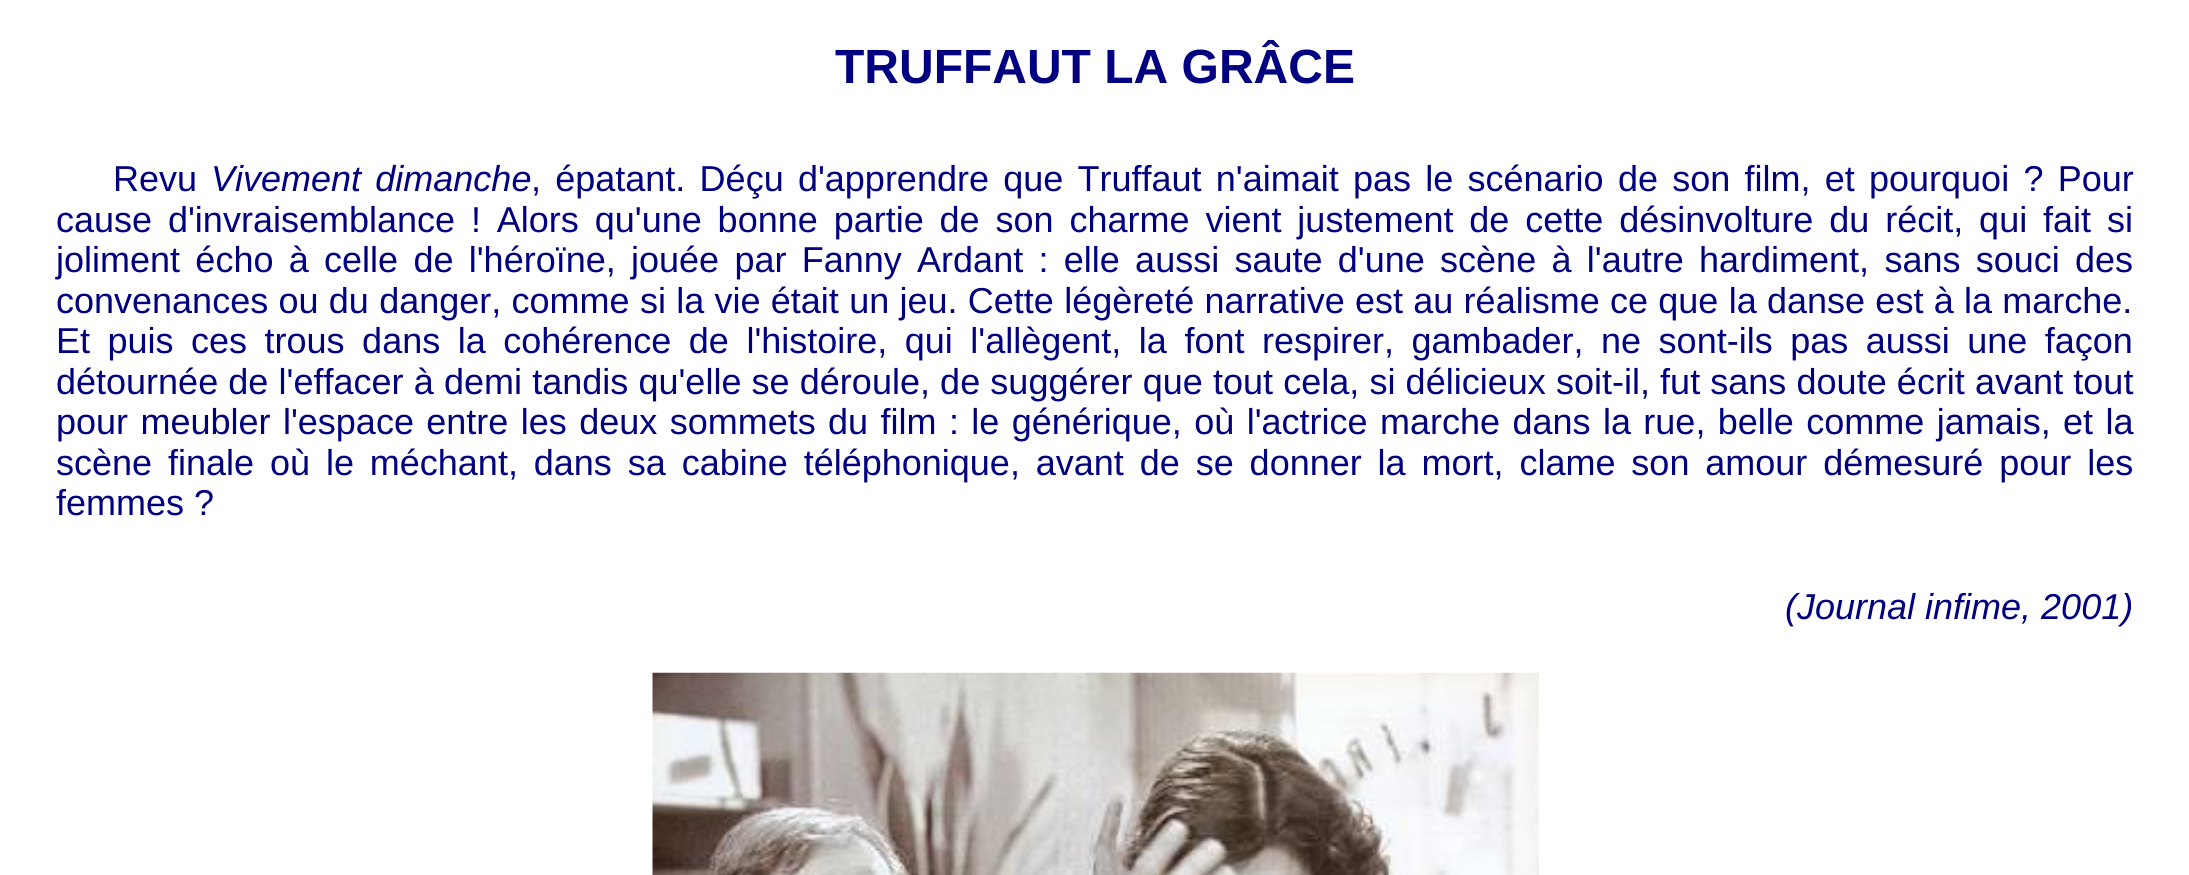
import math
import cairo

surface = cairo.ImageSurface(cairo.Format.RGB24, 2189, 875)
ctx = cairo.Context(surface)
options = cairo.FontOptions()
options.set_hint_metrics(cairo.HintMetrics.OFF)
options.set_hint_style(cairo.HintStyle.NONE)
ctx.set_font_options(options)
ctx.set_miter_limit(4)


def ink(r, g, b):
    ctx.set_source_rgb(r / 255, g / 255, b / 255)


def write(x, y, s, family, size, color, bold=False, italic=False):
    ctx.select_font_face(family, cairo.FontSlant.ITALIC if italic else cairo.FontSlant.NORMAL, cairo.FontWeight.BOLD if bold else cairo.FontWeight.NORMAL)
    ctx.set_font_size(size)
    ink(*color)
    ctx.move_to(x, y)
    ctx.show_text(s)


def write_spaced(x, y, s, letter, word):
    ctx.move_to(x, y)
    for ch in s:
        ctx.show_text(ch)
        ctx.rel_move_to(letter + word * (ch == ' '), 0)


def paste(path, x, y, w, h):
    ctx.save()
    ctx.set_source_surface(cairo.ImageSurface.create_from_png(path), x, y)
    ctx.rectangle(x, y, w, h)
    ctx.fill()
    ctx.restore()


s1 = dict(family="Liberation Sans", size=48, color=(0, 0, 128), bold=True)
s2 = dict(family="Liberation Sans", size=36, color=(0, 0, 128))
s3 = dict(family="Liberation Sans", size=36, color=(0, 0, 128), italic=True)

ink(255, 255, 255)
ctx.paint()
write(835, 83, "TRUFFAUT LA GRÂCE", **s1)
write(113, 191, "Revu", **s2)
ctx.select_font_face("Liberation Sans", cairo.FontSlant.ITALIC)
write_spaced(211, 191, "Vivement dimanche", 0, 4.25)
ctx.select_font_face("Liberation Sans")
write_spaced(531, 191, ", épatant. Déçu d'apprendre que Truffaut n'aimait pas le scénario de son film, et pourquoi ? Pour", 0, 4.25)
write_spaced(56, 232, "cause d'invraisemblance ! Alors qu'une bonne partie de son charme vient justement de cette désinvolture du récit, qui fait si", 0, 5.9)
write_spaced(56, 272, "joliment écho à celle de l'héroïne, jouée par Fanny Ardant : elle aussi saute d'une scène à l'autre hardiment, sans souci des", 0, 5.3)
write_spaced(56, 313, "convenances ou du danger, comme si la vie était un jeu. Cette légèreté narrative est au réalisme ce que la danse est à la marche.", 0, 0.3)
write_spaced(56, 353, "Et puis ces trous dans la cohérence de l'histoire, qui l'allègent, la font respirer, gambader, ne sont-ils pas aussi une façon", 0, 7.5)
write_spaced(56, 394, "détournée de l'effacer à demi tandis qu'elle se déroule, de suggérer que tout cela, si délicieux soit-il, fut sans doute écrit avant tout", 0, 0.2)
write_spaced(56, 434, "pour meubler l'espace entre les deux sommets du film : le générique, où l'actrice marche dans la rue, belle comme jamais, et la", 0, 2.4)
write_spaced(56, 475, "scène finale où le méchant, dans sa cabine téléphonique, avant de se donner la mort, clame son amour démesuré pour les", 0, 5.9)
write(56, 515, "femmes ?", **s2)
write(1785, 619, "(Journal infime, 2001)", **s3)
paste("pic1.png", 652, 672, 887, 203)
surface.write_to_png("screenshot.png")
